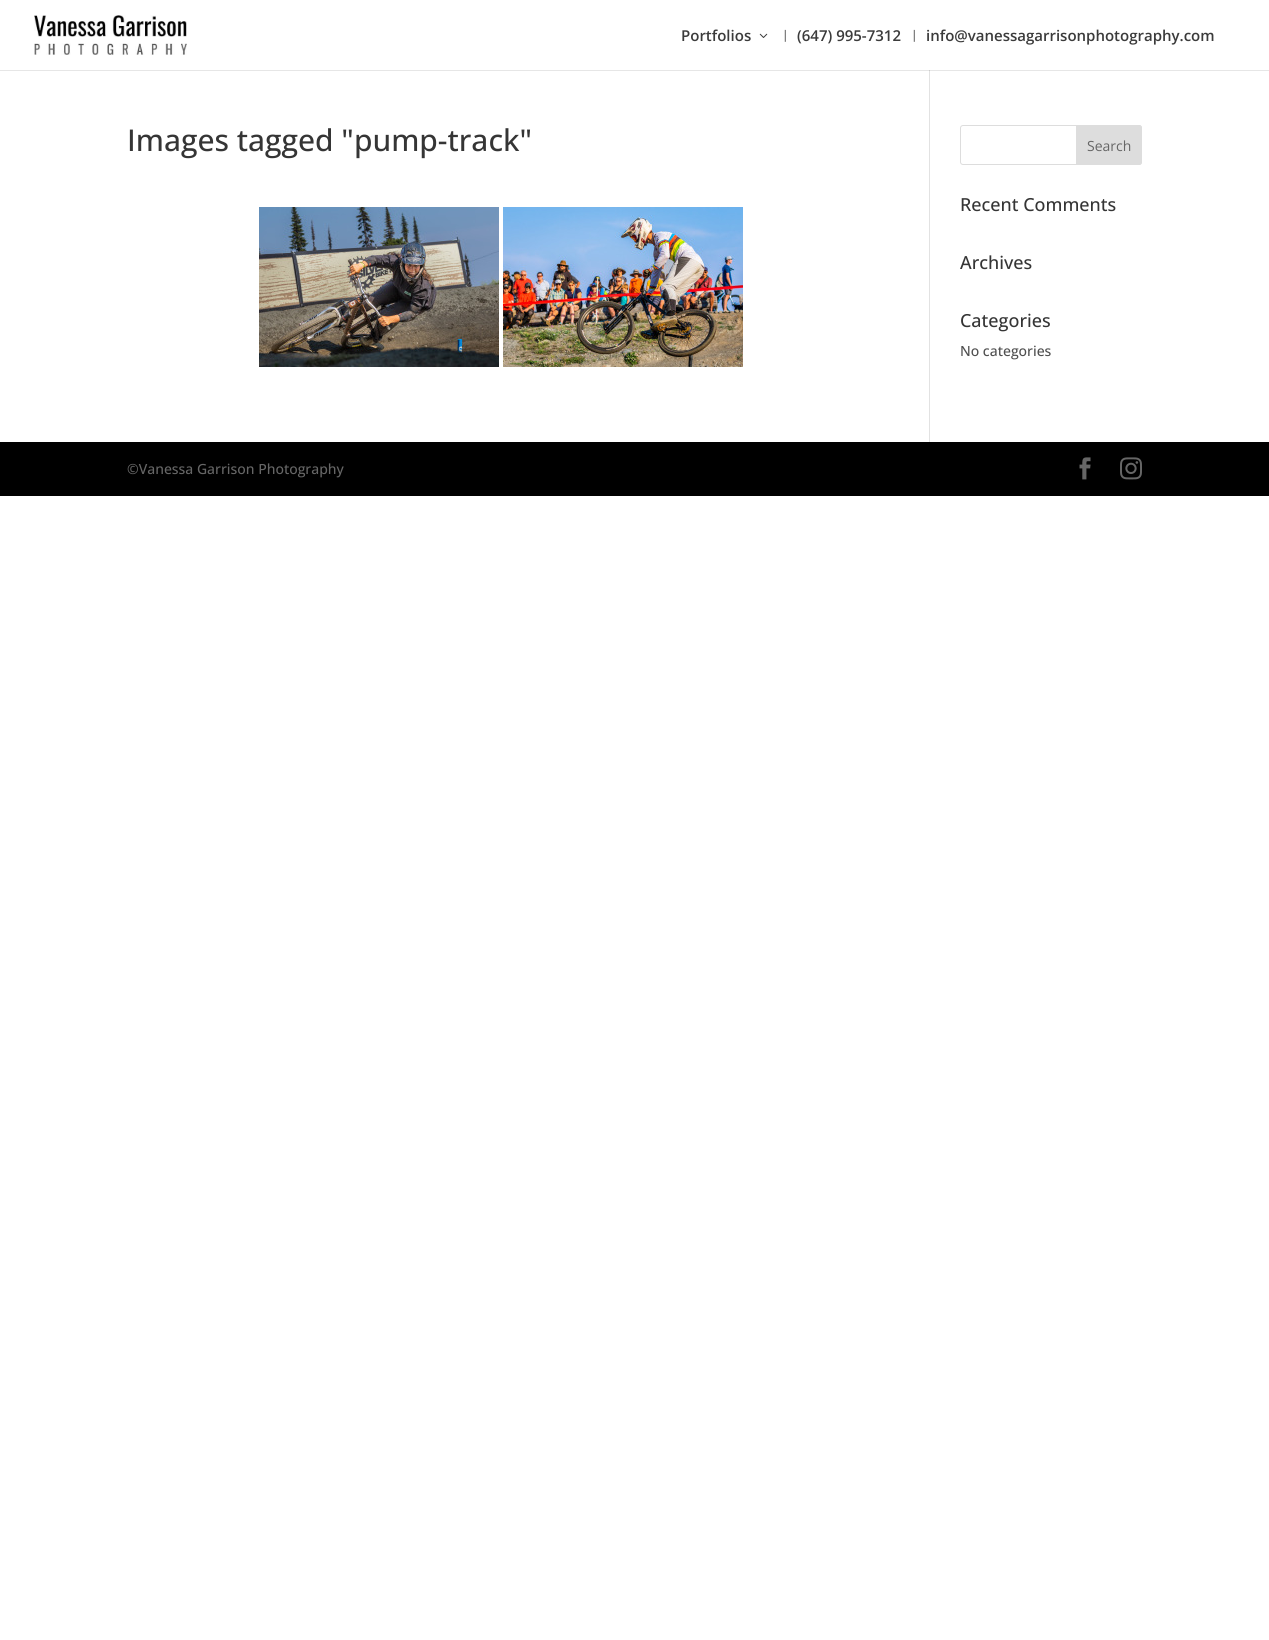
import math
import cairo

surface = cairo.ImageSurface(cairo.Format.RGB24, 1269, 1640)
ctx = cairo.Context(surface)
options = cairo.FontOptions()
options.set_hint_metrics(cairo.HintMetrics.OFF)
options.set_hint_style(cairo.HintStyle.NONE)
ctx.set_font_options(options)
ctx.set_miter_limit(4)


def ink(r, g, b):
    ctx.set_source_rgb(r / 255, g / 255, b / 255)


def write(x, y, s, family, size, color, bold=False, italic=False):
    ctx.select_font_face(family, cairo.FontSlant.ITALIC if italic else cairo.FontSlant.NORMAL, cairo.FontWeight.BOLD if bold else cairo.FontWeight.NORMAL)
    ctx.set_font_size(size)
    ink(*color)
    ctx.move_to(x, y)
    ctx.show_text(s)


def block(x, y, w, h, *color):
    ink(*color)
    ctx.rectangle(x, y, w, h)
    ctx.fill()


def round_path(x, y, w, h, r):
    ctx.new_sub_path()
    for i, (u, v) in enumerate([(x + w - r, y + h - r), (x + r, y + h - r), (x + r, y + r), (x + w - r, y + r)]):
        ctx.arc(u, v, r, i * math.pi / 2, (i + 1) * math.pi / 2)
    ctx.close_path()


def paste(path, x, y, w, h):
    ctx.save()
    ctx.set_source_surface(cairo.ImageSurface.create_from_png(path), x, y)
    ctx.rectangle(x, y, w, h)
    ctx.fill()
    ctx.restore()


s1 = dict(family="Open Sans SemiBold", size=15, color=(59, 59, 59))
s2 = dict(family="Open Sans SemiBold", size=12, color=(102, 102, 102))
s3 = dict(family="Open Sans Medium", size=30, color=(53, 53, 53))
s4 = dict(family="Open Sans", size=14, color=(102, 102, 102))
s5 = dict(family="Open Sans Medium", size=18, color=(53, 53, 53))
s6 = dict(family="Open Sans Medium", size=14, color=(79, 79, 79))
s7 = dict(family="Open Sans Medium", size=14, color=(102, 102, 102))

ink(255, 255, 255)
ctx.paint()
block(0, 70, 1269, 1, 230, 230, 230)
block(929, 67, 1, 375, 226, 226, 226)
block(929, 67, 1, 3, 255, 255, 255)
paste("pic1.png", 34, 15, 153, 40)
write(681, 41, "Portfolios", **s1)
paste("pic2.png", 759, 33, 9, 5)
write(782, 39, "|", **s2)
write(797, 41, "(647) 995-7312", **s1)
write(911, 39, "|", **s2)
write(926, 41, "info@vanessagarrisonphotography.com", **s1)
block(929, 70, 1, 1, 203, 203, 203)
write(127, 151, "Images tagged \"pump-track\"", **s3)
paste("pic3.png", 259, 207, 240, 160)
paste("pic4.png", 503, 207, 240, 160)
round_path(960.5, 125.5, 181, 39, 2.5)
ink(221, 221, 221)
ctx.set_line_width(1)
ctx.stroke()
ctx.new_path()
ctx.move_to(1076.5, 125.5)
ctx.line_to(1139, 125.5)
ctx.curve_to(1140.5, 125.5, 1141.5, 126.5, 1141.5, 128)
ctx.line_to(1141.5, 162)
ctx.curve_to(1141.5, 163.5, 1140.5, 164.5, 1139, 164.5)
ctx.line_to(1076.5, 164.5)
ctx.close_path()
ctx.fill_preserve()
ctx.stroke()
write(1087, 151, "Search", **s4)
write(960, 211, "Recent Comments", **s5)
write(960, 269, "Archives", **s5)
write(960, 327, "Categories", **s5)
write(960, 356, "No categories", **s6)
block(0, 442, 1269, 54, 0, 0, 0)
write(127, 474, "©Vanessa Garrison Photography", **s7)
paste("pic5.png", 1079, 457, 12, 23)
paste("pic6.png", 1120, 457, 22, 23)
surface.write_to_png("screenshot.png")
